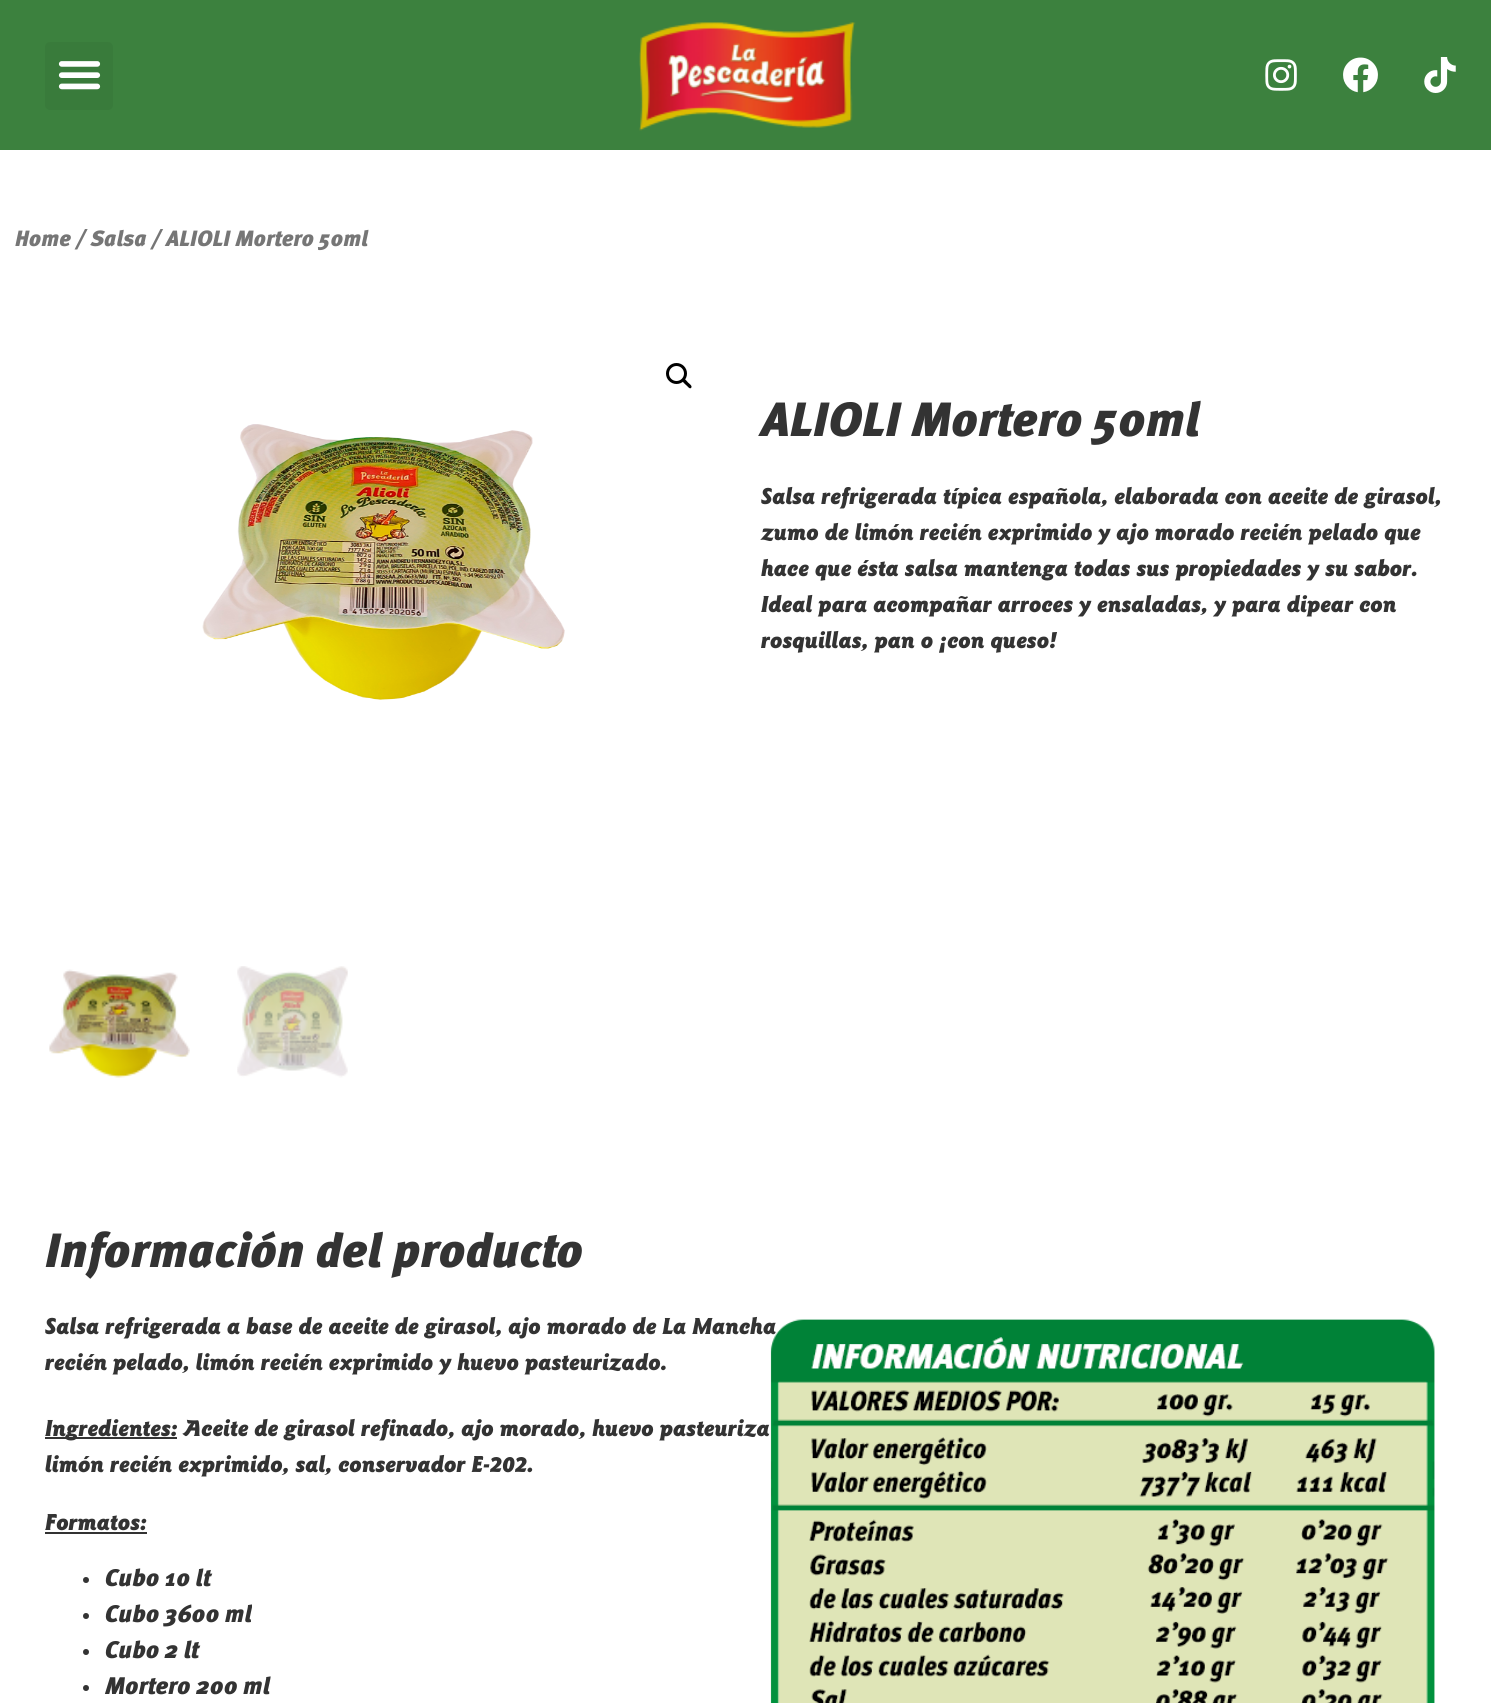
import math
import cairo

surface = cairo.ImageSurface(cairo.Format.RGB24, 1491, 1703)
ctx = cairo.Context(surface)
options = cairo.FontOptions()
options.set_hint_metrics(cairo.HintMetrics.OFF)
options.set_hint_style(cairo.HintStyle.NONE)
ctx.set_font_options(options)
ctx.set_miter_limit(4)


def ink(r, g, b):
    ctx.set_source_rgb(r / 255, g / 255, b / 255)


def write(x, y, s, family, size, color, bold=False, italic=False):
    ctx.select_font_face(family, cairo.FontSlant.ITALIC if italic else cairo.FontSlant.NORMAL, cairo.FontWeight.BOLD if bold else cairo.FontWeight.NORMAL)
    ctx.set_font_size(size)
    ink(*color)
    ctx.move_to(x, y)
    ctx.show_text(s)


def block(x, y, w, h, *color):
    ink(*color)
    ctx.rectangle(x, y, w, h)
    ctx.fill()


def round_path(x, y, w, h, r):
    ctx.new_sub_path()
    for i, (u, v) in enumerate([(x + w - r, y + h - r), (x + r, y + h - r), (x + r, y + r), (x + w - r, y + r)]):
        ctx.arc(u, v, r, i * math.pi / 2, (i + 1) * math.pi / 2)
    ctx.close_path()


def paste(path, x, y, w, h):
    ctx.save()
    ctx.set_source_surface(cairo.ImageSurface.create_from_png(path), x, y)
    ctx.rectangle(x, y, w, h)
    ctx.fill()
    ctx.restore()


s1 = dict(family="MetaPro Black", size=22.1, color=(118, 118, 118))
s2 = dict(family="MetaPro Black", size=48, color=(51, 51, 51))
s3 = dict(family="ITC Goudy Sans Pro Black", size=24, color=(51, 51, 51), italic=True)
s4 = dict(family="MetaPro Black", size=24, color=(51, 51, 51))

ink(255, 255, 255)
ctx.paint()
block(0, 0, 1491, 150, 60, 129, 62)
ink(57, 123, 59)
round_path(45, 42, 68, 68, 5)
ctx.fill()
paste("pic1.png", 58, 61, 43, 29)
paste("pic2.png", 639, 22, 217, 109)
paste("pic3.png", 1265, 59, 32, 32)
paste("pic4.png", 1343, 57, 35, 36)
paste("pic5.png", 1424, 57, 32, 36)
write(15, 246, "Home / Salsa / ALIOLI Mortero 50ml", **s1)
ctx.new_path()
ctx.arc(676.5, 373.5, 9, 0, 2 * math.pi)
ink(0, 0, 0)
ctx.set_line_width(3)
ctx.stroke()
ctx.new_path()
ctx.move_to(683, 379.5)
ctx.curve_to(684.5, 377.5, 687, 381.5, 688, 382.5)
ctx.curve_to(689, 383.5, 693, 386, 691, 388)
ctx.curve_to(689.5, 389.5, 687, 385.5, 686, 385)
ctx.curve_to(685, 384, 681, 381, 683, 379.5)
ctx.close_path()
ctx.fill()
paste("pic6.png", 202, 424, 363, 276)
paste("pic7.png", 49, 969, 141, 109)
paste("pic8.png", 237, 966, 111, 112)
write(761, 436, "ALIOLI Mortero 50ml", **s2)
write(761, 504, "Salsa refrigerada típica española, elaborada con aceite de girasol,", **s3)
write(761, 540, "zumo de limón recién exprimido y ajo morado recién pelado que", **s3)
write(761, 576, "hace que ésta salsa mantenga todas sus propiedades y su sabor.", **s3)
write(761, 612, "Ideal para acompañar arroces y ensaladas, y para dipear con", **s3)
write(761, 648, "rosquillas, pan o ¡con queso!", **s3)
write(45, 1267, "Información del producto", **s2)
write(45, 1334, "Salsa refrigerada a base de aceite de girasol, ajo morado de La Mancha", **s3)
write(45, 1370, "recién pelado, limón recién exprimido y huevo pasteurizado.", **s3)
block(45, 1437, 132, 2, 51, 51, 51)
write(45, 1436, "Ingredientes: Aceite de girasol refinado, ajo morado, huevo pasteuriza", **s3)
write(45, 1472, "limón recién exprimido, sal, conservador E-202.", **s3)
write(45, 1530, "Formatos:", **s3)
block(45, 1532, 102, 2, 51, 51, 51)
ctx.new_path()
ctx.arc(86, 1580, 3, 0, 2 * math.pi)
ctx.fill()
write(105, 1586, "Cubo 10 lt", **s4)
ctx.new_path()
ctx.arc(86, 1616, 3, 0, 2 * math.pi)
ctx.fill()
write(105, 1622, "Cubo 3600 ml", **s4)
ctx.new_path()
ctx.arc(86, 1652, 3, 0, 2 * math.pi)
ctx.fill()
write(105, 1658, "Cubo 2 lt", **s4)
ctx.new_path()
ctx.arc(86, 1688, 3, 0, 2 * math.pi)
ctx.fill()
write(105, 1694, "Mortero 200 ml", **s4)
paste("pic9.png", 770, 1319, 665, 384)
surface.write_to_png("screenshot.png")
